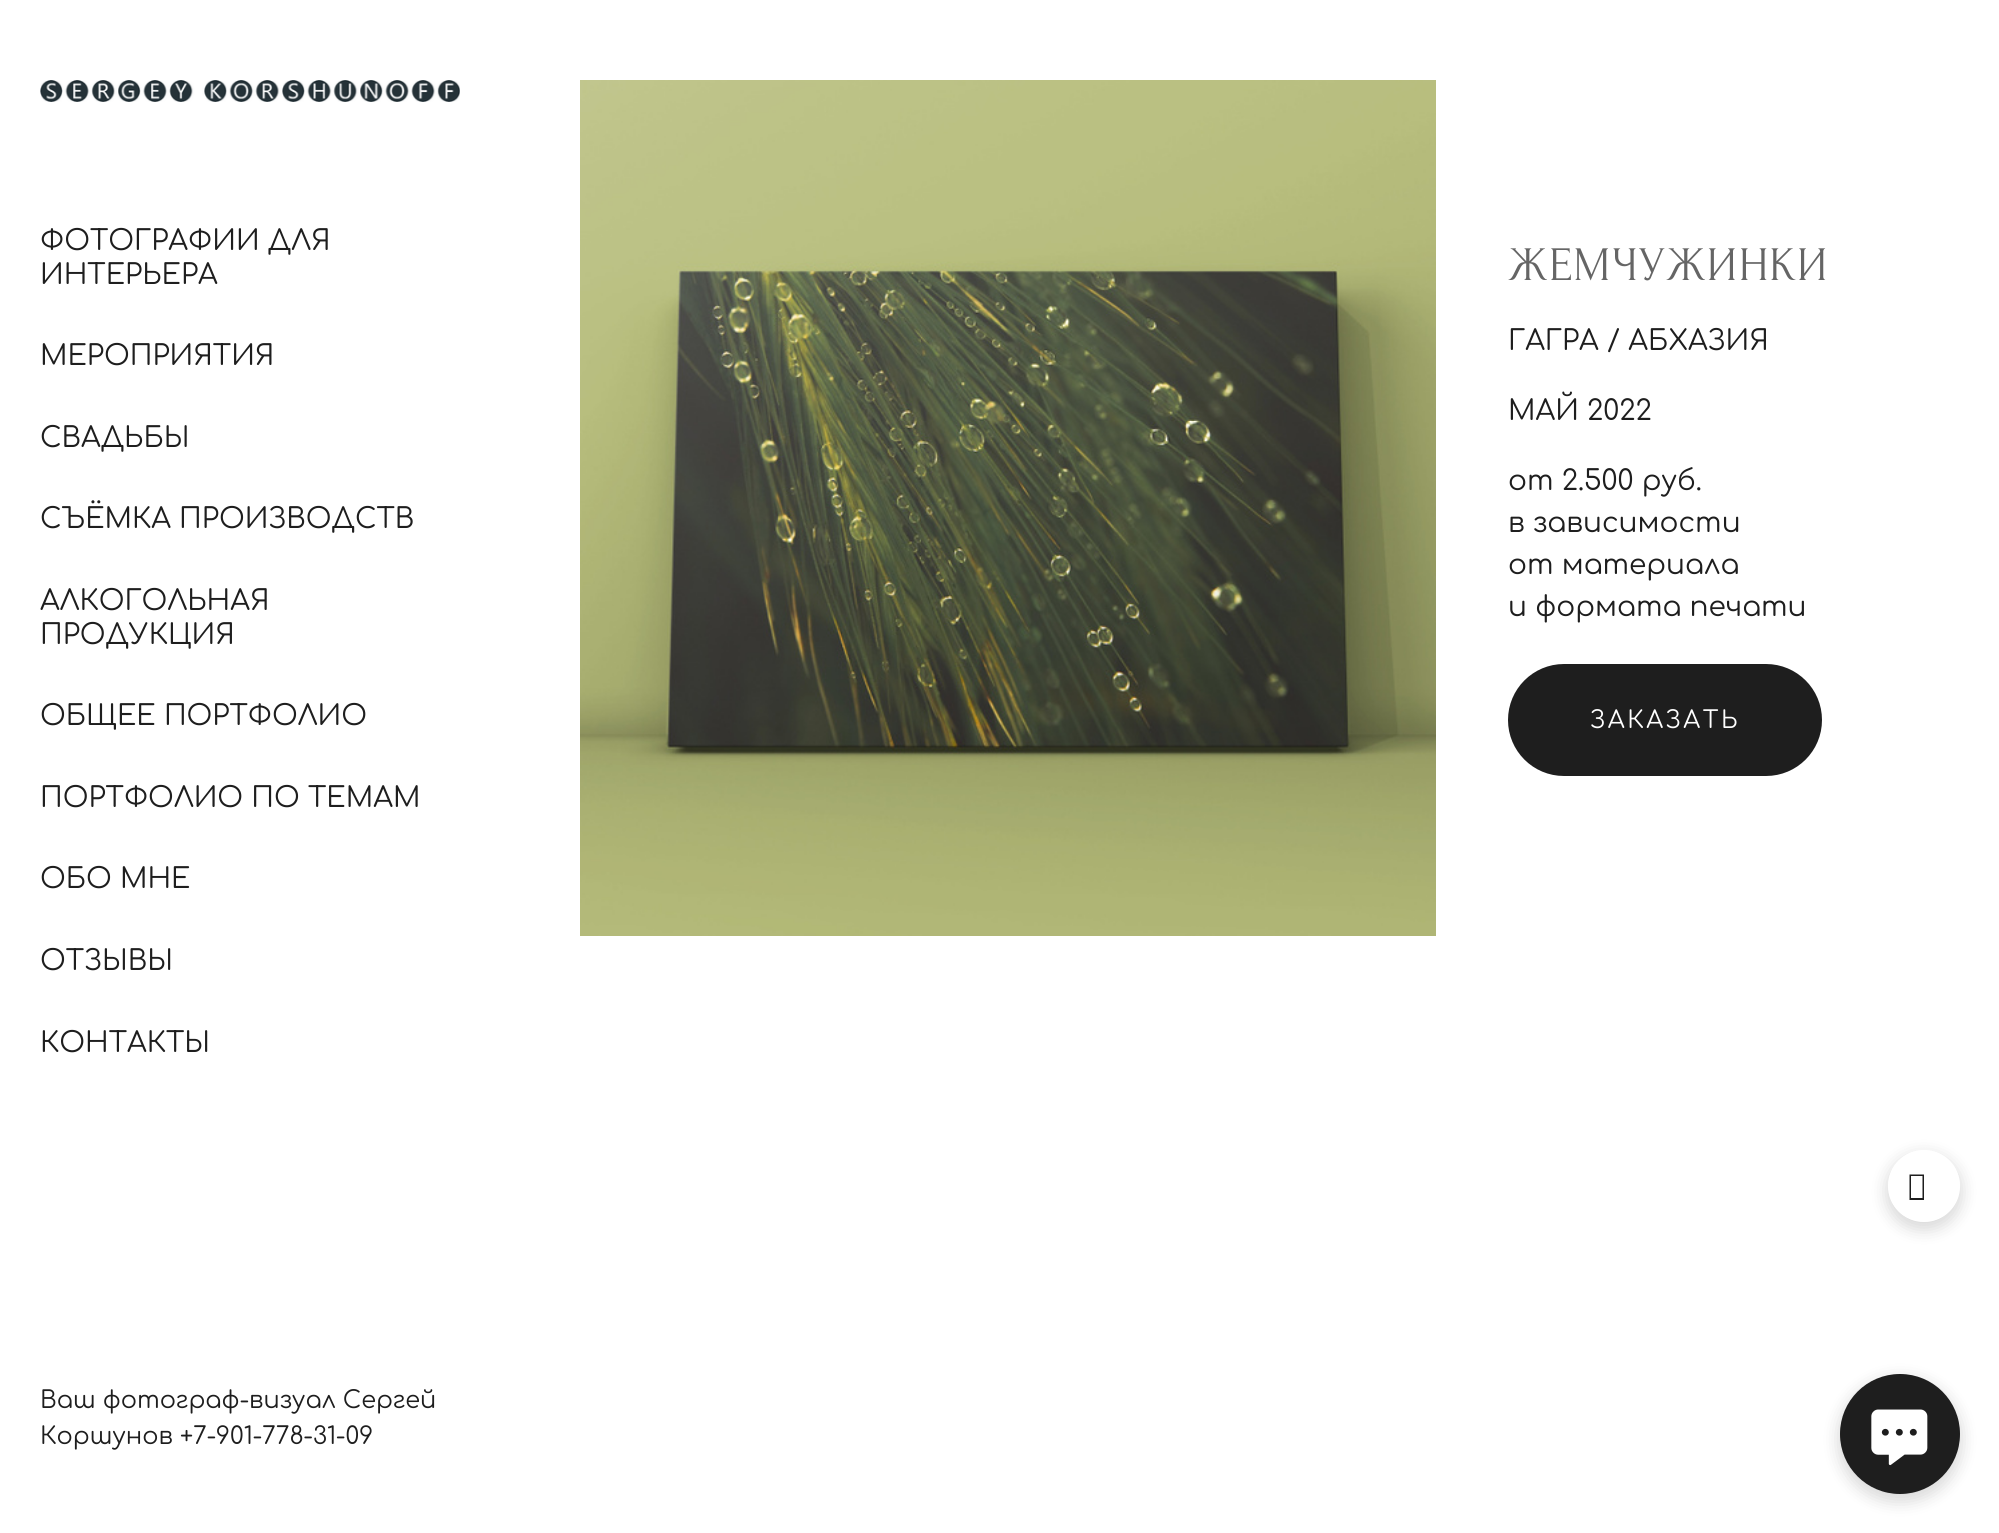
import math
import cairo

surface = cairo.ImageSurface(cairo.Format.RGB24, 1999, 1533)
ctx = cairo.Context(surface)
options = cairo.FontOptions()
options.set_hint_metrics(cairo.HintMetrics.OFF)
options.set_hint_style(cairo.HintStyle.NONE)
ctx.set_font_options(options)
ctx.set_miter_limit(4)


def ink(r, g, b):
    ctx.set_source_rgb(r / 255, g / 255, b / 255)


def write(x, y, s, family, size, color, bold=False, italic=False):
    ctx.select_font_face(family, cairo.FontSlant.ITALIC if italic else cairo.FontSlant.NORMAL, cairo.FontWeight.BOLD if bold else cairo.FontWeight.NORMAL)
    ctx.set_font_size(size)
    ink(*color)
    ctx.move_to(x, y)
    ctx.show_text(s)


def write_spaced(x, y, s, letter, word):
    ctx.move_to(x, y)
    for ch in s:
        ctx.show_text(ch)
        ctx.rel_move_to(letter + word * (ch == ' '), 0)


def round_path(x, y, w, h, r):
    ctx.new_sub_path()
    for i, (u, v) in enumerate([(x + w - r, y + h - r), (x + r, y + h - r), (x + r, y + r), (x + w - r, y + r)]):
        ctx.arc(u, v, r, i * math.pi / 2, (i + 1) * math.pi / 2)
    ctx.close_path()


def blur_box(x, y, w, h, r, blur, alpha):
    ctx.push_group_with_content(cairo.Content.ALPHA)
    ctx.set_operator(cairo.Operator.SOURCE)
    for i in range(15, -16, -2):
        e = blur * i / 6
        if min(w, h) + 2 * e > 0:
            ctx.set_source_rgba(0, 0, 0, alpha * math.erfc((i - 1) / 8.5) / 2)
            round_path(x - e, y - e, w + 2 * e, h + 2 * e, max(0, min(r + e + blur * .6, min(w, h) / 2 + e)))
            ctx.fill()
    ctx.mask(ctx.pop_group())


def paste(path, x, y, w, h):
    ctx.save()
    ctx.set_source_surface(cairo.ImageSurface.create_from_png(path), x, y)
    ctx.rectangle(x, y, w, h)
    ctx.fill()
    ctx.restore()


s1 = dict(family="Comfortaa", size=28, color=(30, 30, 30))
s2 = dict(family="Comfortaa", size=24, color=(30, 30, 30))

ink(255, 255, 255)
ctx.paint()
paste("pic1.png", 40, 80, 420, 22)
write(40, 250, "ФОТОГРАФИИ ДЛЯ", **s1)
write(40, 284, "ИНТЕРЬЕРА", **s1)
write(40, 365, "МЕРОПРИЯТИЯ", **s1)
write(40, 447, "СВАДЬБЫ", **s1)
write(40, 528, "СЪЁМКА ПРОИЗВОДСТВ", **s1)
write(40, 610, "АЛКОГОЛЬНАЯ", **s1)
write(40, 644, "ПРОДУКЦИЯ", **s1)
write(40, 725, "ОБЩЕЕ ПОРТФОЛИО", **s1)
write(40, 807, "ПОРТФОЛИО ПО ТЕМАМ", **s1)
write(40, 888, "ОБО МНЕ", **s1)
write(40, 970, "ОТЗЫВЫ", **s1)
write(40, 1052, "КОНТАКТЫ", **s1)
write(40, 1408, "Ваш фотограф-визуал Сергей", **s2)
write(40, 1444, "Коршунов +7-901-778-31-09", **s2)
paste("pic2.png", 580, 80, 856, 856)
ctx.select_font_face("Forum")
ctx.set_font_size(48)
ink(101, 101, 101)
write_spaced(1508, 280, "ЖЕМЧУЖИНКИ", 1, 0)
write(1508, 350, "ГАГРА / АБХАЗИЯ", **s1)
write(1508, 420, "МАЙ 2022", **s1)
write(1508, 490, "от 2.500 руб.", **s1)
write(1508, 532, "в зависимости", **s1)
write(1508, 574, "от материала", **s1)
write(1508, 616, "и формата печати", **s1)
round_path(1509, 665, 312, 110, 55)
ctx.fill_preserve()
ctx.stroke()
ctx.set_font_size(24)
ink(255, 255, 255)
write_spaced(1590, 728, "ЗАКАЗАТЬ", 2.5, 0)
ctx.save()
ctx.set_fill_rule(cairo.FillRule.EVEN_ODD)
ctx.new_path()
ctx.move_to(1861, 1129)
ctx.line_to(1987, 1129)
ctx.line_to(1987, 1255)
ctx.line_to(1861, 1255)
ctx.close_path()
ctx.move_to(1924, 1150)
ctx.curve_to(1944, 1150, 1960, 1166, 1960, 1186)
ctx.curve_to(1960, 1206, 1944, 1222, 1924, 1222)
ctx.curve_to(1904, 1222, 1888, 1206, 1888, 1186)
ctx.curve_to(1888, 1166, 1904, 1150, 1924, 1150)
ctx.close_path()
ctx.clip()
ink(0, 0, 0)
blur_box(1886, 1154, 76, 76, 38, 8, 0.15)
ctx.restore()
ink(30, 30, 30)
ctx.new_path()
ctx.move_to(1909.5, 1200)
ctx.line_to(1909.5, 1174.5)
ctx.line_to(1924, 1174.5)
ctx.line_to(1924, 1200)
ctx.close_path()
ctx.move_to(1911, 1198)
ctx.line_to(1922.5, 1198)
ctx.line_to(1922.5, 1176)
ctx.line_to(1911, 1176)
ctx.close_path()
ctx.fill()
ink(0, 0, 0)
blur_box(1838, 1378, 124, 124, 62, 8, 0.15)
ink(30, 30, 30)
ctx.arc(1900, 1434, 60, 0, 2 * math.pi)
ctx.fill()
paste("pic3.png", 1871, 1409, 57, 57)
surface.write_to_png("screenshot.png")
